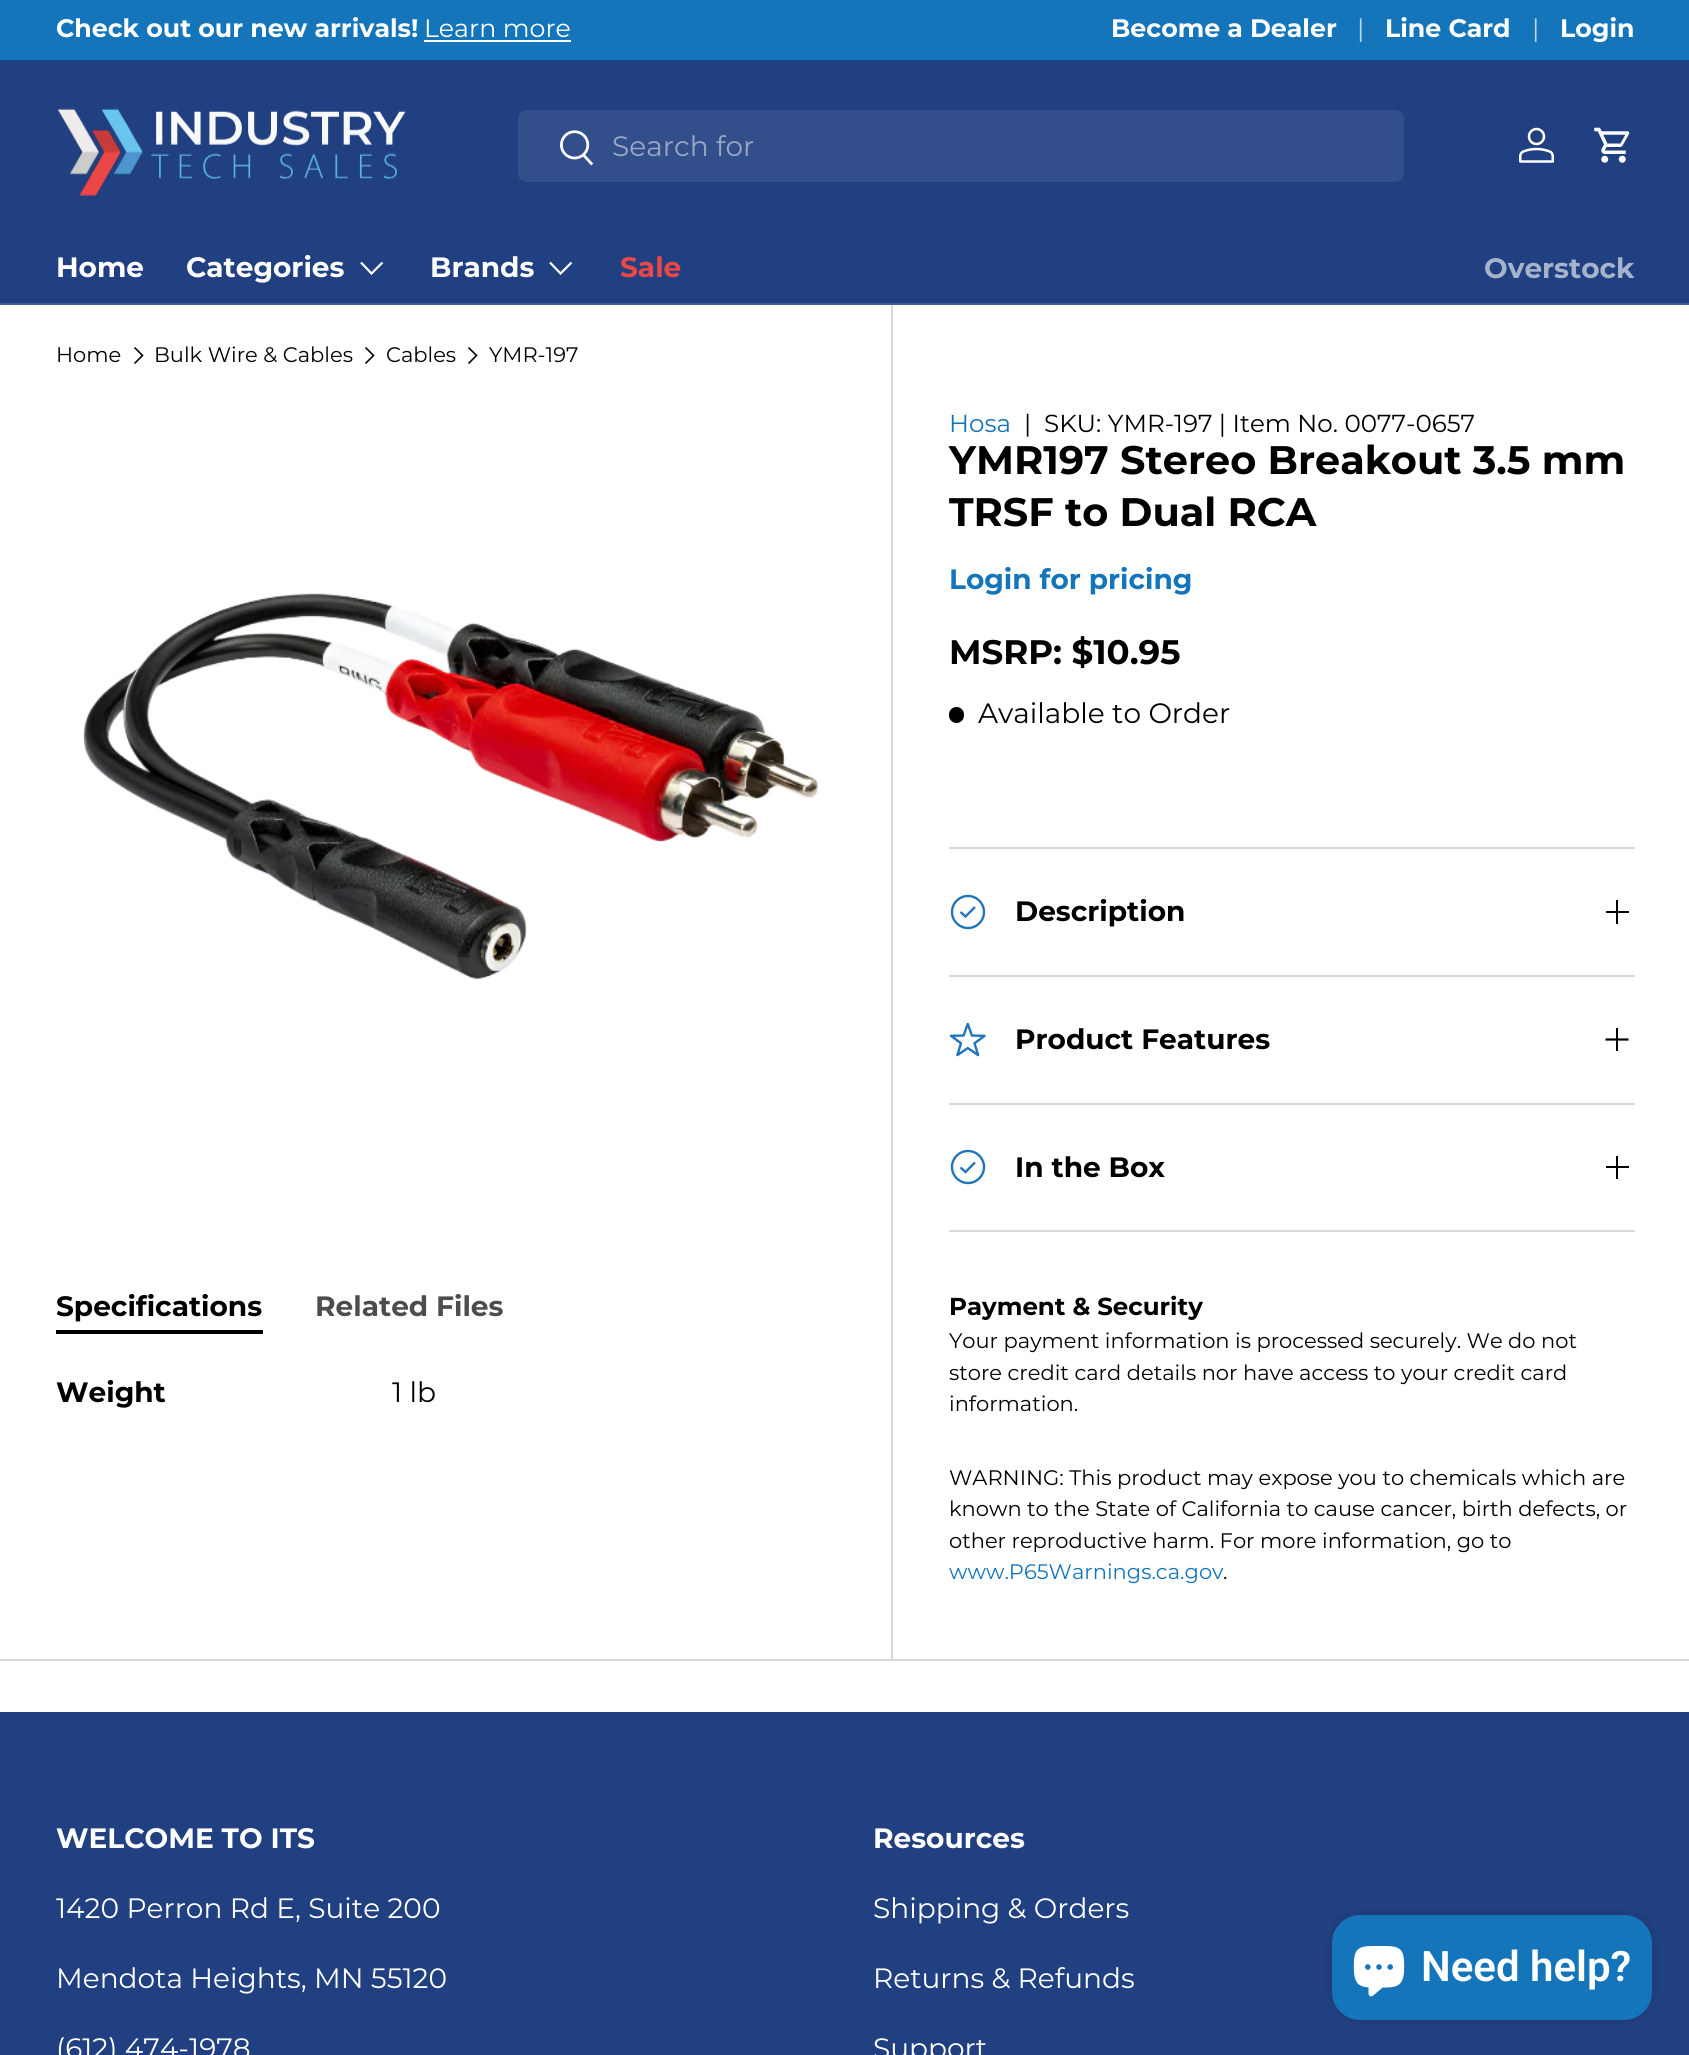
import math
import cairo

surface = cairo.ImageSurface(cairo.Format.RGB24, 1689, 2055)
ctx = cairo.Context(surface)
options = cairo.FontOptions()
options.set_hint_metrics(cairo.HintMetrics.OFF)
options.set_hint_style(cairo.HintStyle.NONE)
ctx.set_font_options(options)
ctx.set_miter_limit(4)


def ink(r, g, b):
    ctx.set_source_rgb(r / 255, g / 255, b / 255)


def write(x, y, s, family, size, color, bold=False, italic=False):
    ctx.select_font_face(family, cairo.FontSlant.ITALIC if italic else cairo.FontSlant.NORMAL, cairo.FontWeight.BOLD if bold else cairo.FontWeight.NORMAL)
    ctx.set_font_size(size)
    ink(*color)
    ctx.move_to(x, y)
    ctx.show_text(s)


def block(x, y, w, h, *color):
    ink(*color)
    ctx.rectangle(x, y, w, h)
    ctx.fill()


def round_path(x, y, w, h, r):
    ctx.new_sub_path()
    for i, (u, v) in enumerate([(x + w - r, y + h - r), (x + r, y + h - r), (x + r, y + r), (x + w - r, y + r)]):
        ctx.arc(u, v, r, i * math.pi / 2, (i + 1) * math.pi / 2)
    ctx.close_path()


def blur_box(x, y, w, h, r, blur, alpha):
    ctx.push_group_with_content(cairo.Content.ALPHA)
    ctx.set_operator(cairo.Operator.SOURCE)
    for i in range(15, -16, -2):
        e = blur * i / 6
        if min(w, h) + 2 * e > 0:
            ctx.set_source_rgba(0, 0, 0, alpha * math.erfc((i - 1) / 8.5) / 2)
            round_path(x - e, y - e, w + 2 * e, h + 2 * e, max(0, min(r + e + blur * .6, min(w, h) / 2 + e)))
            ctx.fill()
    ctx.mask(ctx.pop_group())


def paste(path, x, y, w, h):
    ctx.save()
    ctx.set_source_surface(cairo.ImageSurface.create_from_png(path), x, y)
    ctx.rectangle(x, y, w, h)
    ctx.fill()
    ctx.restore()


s1 = dict(family="Montserrat", size=25.25, color=(255, 255, 255), bold=True)
s2 = dict(family="Montserrat", size=25.25, color=(255, 255, 255))
s3 = dict(family="Montserrat", size=25.25, color=(185, 214, 234))
s4 = dict(family="Montserrat", size=28, color=(153, 167, 197))
s5 = dict(family="Montserrat", size=28, color=(255, 255, 255), bold=True)
s6 = dict(family="Montserrat", size=28, color=(237, 70, 70), bold=True)
s7 = dict(family="Montserrat", size=28, color=(166, 179, 205), bold=True)
s8 = dict(family="Montserrat", size=21, color=(0, 0, 0))
s9 = dict(family="Montserrat", size=28, color=(0, 0, 0), bold=True)
s10 = dict(family="Montserrat", size=28, color=(77, 77, 77), bold=True)
s11 = dict(family="Montserrat", size=28, color=(0, 0, 0))
s12 = dict(family="Montserrat", size=24.6, color=(21, 117, 186))
s13 = dict(family="Montserrat", size=24.6, color=(0, 0, 0))
s14 = dict(family="Montserrat", size=39.8, color=(0, 0, 0), bold=True)
s15 = dict(family="Montserrat", size=28, color=(21, 117, 186), bold=True)
s16 = dict(family="Montserrat", size=34, color=(0, 0, 0), bold=True)
s17 = dict(family="Montserrat", size=24.5, color=(0, 0, 0), bold=True)
s18 = dict(family="Montserrat", size=21, color=(21, 117, 186))
s19 = dict(family="Montserrat", size=28, color=(255, 255, 255))
s20 = dict(family="Roboto SemiBold", size=42, color=(255, 255, 255))

ink(255, 255, 255)
ctx.paint()
block(0, 0, 1689, 60, 21, 117, 186)
write(56, 37, "Check out our new arrivals!", **s1)
write(424, 37, "Learn more", **s2)
block(424, 40, 147, 2, 255, 255, 255)
write(1111, 37, "Become a Dealer", **s1)
write(1357, 37, "|", **s3)
write(1385, 37, "Line Card", **s1)
write(1532, 37, "|", **s3)
write(1560, 37, "Login", **s1)
block(0, 60, 1689, 243, 33, 64, 129)
block(0, 303, 1689, 2, 66, 93, 148)
paste("pic1.png", 58, 108, 348, 88)
ink(51, 79, 139)
round_path(518, 110, 886, 72, 9)
ctx.fill()
paste("pic2.png", 560, 130, 34, 36)
write(612, 156, "Search for", **s4)
paste("pic3.png", 1519, 127, 35, 36)
paste("pic4.png", 1594, 127, 36, 36)
write(56, 277, "Home", **s5)
write(186, 277, "Categories", **s5)
ctx.new_path()
ctx.move_to(382.5, 262.5)
ctx.line_to(371.5, 273.5)
ctx.line_to(361, 262.5)
ctx.set_line_width(2.2)
ctx.stroke()
write(430, 277, "Brands", **s5)
ctx.new_path()
ctx.move_to(571.5, 262.5)
ctx.line_to(560.5, 273.5)
ctx.line_to(550, 262.5)
ctx.stroke()
write(620, 277, "Sale", **s6)
write(1484, 278, "Overstock", **s7)
write(56, 362, "Home", **s8)
ctx.new_path()
ctx.move_to(134.5, 347.5)
ctx.line_to(142.5, 355.5)
ctx.line_to(134.5, 363.5)
ctx.set_line_width(1.6)
ctx.stroke()
write(154, 362, "Bulk Wire & Cables", **s8)
ctx.new_path()
ctx.move_to(365.5, 347.5)
ctx.line_to(373.5, 355.5)
ctx.line_to(365.5, 363.5)
ctx.stroke()
write(386, 362, "Cables", **s8)
ctx.new_path()
ctx.move_to(468.5, 347.5)
ctx.line_to(476.5, 355.5)
ctx.line_to(468.5, 363.5)
ctx.stroke()
write(489, 362, "YMR-197", **s8)
write(56, 1316, "Specifications", **s9)
block(56, 1330, 207, 4, 0, 0, 0)
write(315, 1316, "Related Files", **s10)
write(56, 1402, "Weight", **s9)
write(392, 1402, "1 lb", **s11)
paste("pic5.png", 83, 593, 736, 386)
block(0, 1659, 1689, 2, 217, 217, 217)
block(891, 305, 2, 1356, 217, 217, 217)
write(949, 432, "Hosa", **s12)
write(1024, 432, "|", **s13)
write(1044, 432, "SKU: YMR-197 | Item No. 0077-0657", **s13)
write(949, 474, "YMR197 Stereo Breakout 3.5 mm", **s14)
write(949, 526, "TRSF to Dual RCA", **s14)
write(949, 589, "Login for pricing", **s15)
write(949, 664, "MSRP: $10.95", **s16)
round_path(949, 707, 15, 16, 7.5)
ctx.fill()
write(978, 723, "Available to Order", **s11)
block(949, 847, 686, 2, 217, 217, 217)
block(949, 975, 686, 2, 217, 217, 217)
ctx.new_path()
ctx.arc(968, 912, 16, 0, 2 * math.pi)
ink(34, 117, 185)
ctx.set_line_width(2.4)
ctx.stroke()
ctx.new_path()
ctx.move_to(975, 907)
ctx.line_to(965.5, 916.5)
ctx.line_to(960.5, 912)
ctx.stroke()
write(1015, 921, "Description", **s9)
paste("pic6.png", 1606, 900, 23, 24)
block(949, 1103, 686, 2, 217, 217, 217)
paste("pic7.png", 949, 1022, 37, 35)
write(1015, 1049, "Product Features", **s9)
ctx.new_path()
ctx.move_to(1605.5, 1039.5)
ctx.line_to(1628.5, 1039.5)
ctx.set_line_width(2.2)
ctx.stroke()
block(1616, 1028, 2, 23, 0, 0, 0)
block(949, 1230, 686, 2, 217, 217, 217)
ctx.arc(968, 1167, 16, 0, 2 * math.pi)
ink(34, 117, 185)
ctx.set_line_width(2.4)
ctx.stroke()
ctx.new_path()
ctx.move_to(975, 1162.5)
ctx.line_to(965.5, 1172)
ctx.line_to(960.5, 1167.5)
ctx.stroke()
write(1015, 1177, "In the Box", **s9)
paste("pic8.png", 1606, 1156, 23, 23)
write(949, 1315, "Payment & Security", **s17)
write(949, 1348, "Your payment information is processed securely. We do not", **s8)
write(949, 1380, "store credit card details nor have access to your credit card", **s8)
write(949, 1411, "information.", **s8)
write(949, 1485, "WARNING: This product may expose you to chemicals which are", **s8)
write(949, 1516, "known to the State of California to cause cancer, birth defects, or", **s8)
write(949, 1548, "other reproductive harm. For more information, go to", **s8)
write(949, 1579, "www.P65Warnings.ca.gov", **s18)
write(1223, 1579, ".", **s8)
block(0, 1712, 1689, 343, 33, 64, 129)
write(56, 1848, "WELCOME TO ITS", **s5)
write(56, 1918, "1420 Perron Rd E, Suite 200", **s19)
write(56, 1988, "Mendota Heights, MN 55120", **s19)
write(56, 2058, "(612) 474-1978", **s19)
write(873, 1848, "Resources", **s5)
write(873, 1918, "Shipping & Orders", **s19)
write(873, 1988, "Returns & Refunds", **s19)
write(873, 2058, "Support", **s19)
ink(0, 0, 0)
blur_box(1332, 1915, 320, 105, 28, 4.5, 0.15)
ink(21, 117, 186)
round_path(1332, 1915, 320, 105, 28)
ctx.fill()
paste("pic9.png", 1353, 1946, 52, 51)
write(1421, 1981, "Need help?", **s20)
surface.write_to_png("screenshot.png")
